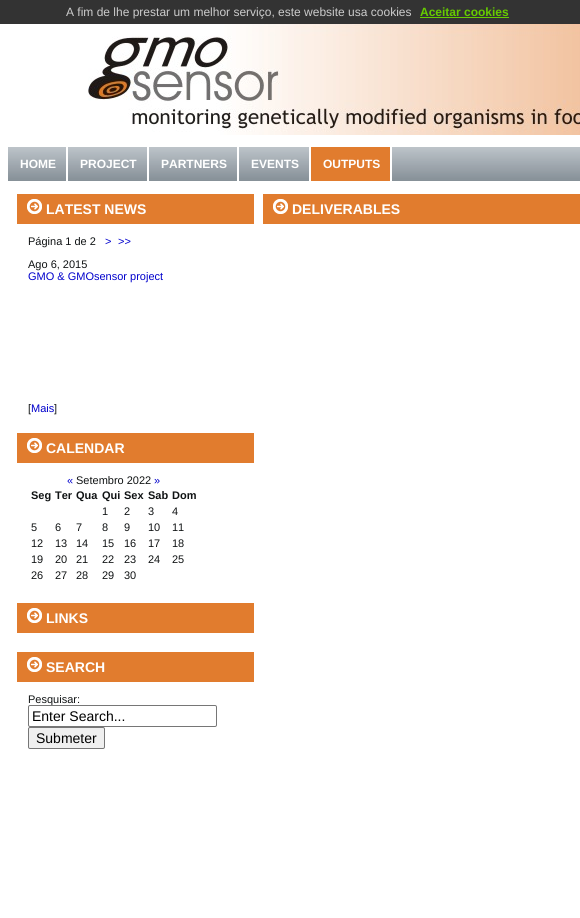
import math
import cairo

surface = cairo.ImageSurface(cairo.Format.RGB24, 580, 918)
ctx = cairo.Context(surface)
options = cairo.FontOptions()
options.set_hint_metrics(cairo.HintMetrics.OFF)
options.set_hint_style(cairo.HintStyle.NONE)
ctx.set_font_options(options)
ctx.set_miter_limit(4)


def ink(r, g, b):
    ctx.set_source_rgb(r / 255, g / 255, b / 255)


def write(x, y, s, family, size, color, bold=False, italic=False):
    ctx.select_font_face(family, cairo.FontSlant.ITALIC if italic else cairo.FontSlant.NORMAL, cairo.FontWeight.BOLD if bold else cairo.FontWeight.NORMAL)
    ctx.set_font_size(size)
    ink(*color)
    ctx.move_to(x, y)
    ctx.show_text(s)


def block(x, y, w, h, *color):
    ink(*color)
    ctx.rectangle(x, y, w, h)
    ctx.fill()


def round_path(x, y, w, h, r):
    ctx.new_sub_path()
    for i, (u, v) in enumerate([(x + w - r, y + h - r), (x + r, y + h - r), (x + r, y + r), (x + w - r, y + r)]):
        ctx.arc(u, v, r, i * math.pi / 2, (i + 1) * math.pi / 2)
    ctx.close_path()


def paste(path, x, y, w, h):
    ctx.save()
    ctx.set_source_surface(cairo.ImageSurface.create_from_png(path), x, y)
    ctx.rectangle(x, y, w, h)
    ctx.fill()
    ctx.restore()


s1 = dict(family="Liberation Sans", size=12, color=(204, 204, 204))
s2 = dict(family="Liberation Sans", size=12, color=(102, 204, 0), bold=True)
s3 = dict(family="Liberation Sans", size=12, color=(255, 255, 255), bold=True)
s4 = dict(family="Liberation Sans", size=14, color=(255, 255, 255), bold=True)
s5 = dict(family="Liberation Sans", size=11, color=(16, 19, 20))
s6 = dict(family="Liberation Sans", size=11, color=(0, 0, 204))
s7 = dict(family="Liberation Sans", size=11, color=(16, 19, 20), bold=True)
s8 = dict(family="Liberation Sans", size=14, color=(0, 0, 0))

ink(255, 255, 255)
ctx.paint()
block(0, 0, 580, 24, 51, 51, 51)
write(66, 16, "A fim de lhe prestar um melhor serviço, este website usa cookies", **s1)
write(420, 16, "Aceitar cookies", **s2)
block(420, 17, 89, 1, 102, 204, 0)
paste("pic1.png", 88, 24, 492, 111)
paste("pic2.png", 8, 147, 572, 34)
block(66, 147, 2, 34, 255, 255, 255)
write(20, 168, "HOME", **s3)
block(147, 147, 2, 34, 255, 255, 255)
write(80, 168, "PROJECT", **s3)
block(237, 147, 2, 34, 255, 255, 255)
write(161, 168, "PARTNERS", **s3)
block(309, 147, 2, 34, 255, 255, 255)
write(251, 168, "EVENTS", **s3)
block(311, 147, 79, 34, 225, 124, 46)
block(390, 147, 2, 34, 255, 255, 255)
write(323, 168, "OUTPUTS", **s3)
block(17, 194, 237, 30, 225, 124, 46)
paste("pic3.png", 27, 199, 15, 15)
write(46, 214, "LATEST NEWS", **s4)
write(28, 245, "Página 1 de 2", **s5)
write(105, 245, ">", **s6)
write(118, 245, ">>", **s6)
write(28, 268, "Ago 6, 2015", **s5)
write(28, 280, "GMO & GMOsensor project", **s6)
write(28, 412, "[", **s5)
write(31, 412, "Mais", **s6)
write(54, 412, "]", **s5)
block(17, 433, 237, 30, 225, 124, 46)
paste("pic3.png", 27, 438, 15, 15)
write(46, 453, "CALENDAR", **s4)
write(67, 484, "«", **s6)
write(76, 484, "Setembro 2022", **s5)
write(154, 484, "»", **s6)
write(31, 499, "Seg", **s7)
write(55, 499, "Ter", **s7)
write(76, 499, "Qua", **s7)
write(102, 499, "Qui", **s7)
write(124, 499, "Sex", **s7)
write(148, 499, "Sab", **s7)
write(172, 499, "Dom", **s7)
write(102, 515, "1", **s5)
write(124, 515, "2", **s5)
write(148, 515, "3", **s5)
write(172, 515, "4", **s5)
write(31, 531, "5", **s5)
write(55, 531, "6", **s5)
write(76, 531, "7", **s5)
write(102, 531, "8", **s5)
write(124, 531, "9", **s5)
write(148, 531, "10", **s5)
write(172, 531, "11", **s5)
write(31, 547, "12", **s5)
write(55, 547, "13", **s5)
write(76, 547, "14", **s5)
write(102, 547, "15", **s5)
write(124, 547, "16", **s5)
write(148, 547, "17", **s5)
write(172, 547, "18", **s5)
write(31, 563, "19", **s5)
write(55, 563, "20", **s5)
write(76, 563, "21", **s5)
write(102, 563, "22", **s5)
write(124, 563, "23", **s5)
write(148, 563, "24", **s5)
write(172, 563, "25", **s5)
write(31, 579, "26", **s5)
write(55, 579, "27", **s5)
write(76, 579, "28", **s5)
write(102, 579, "29", **s5)
write(124, 579, "30", **s5)
block(17, 603, 237, 30, 225, 124, 46)
paste("pic3.png", 27, 608, 15, 15)
write(46, 623, "LINKS", **s4)
block(17, 652, 237, 30, 225, 124, 46)
paste("pic3.png", 27, 657, 15, 15)
write(46, 672, "SEARCH", **s4)
write(28, 703, "Pesquisar:", **s5)
ink(255, 255, 255)
round_path(28.5, 705.5, 188, 21, 1.5)
ctx.fill_preserve()
ink(118, 118, 118)
ctx.set_line_width(1)
ctx.stroke()
write(32, 721, "Enter Search...", **s8)
ink(239, 239, 239)
round_path(28.5, 727.5, 76, 21, 1.5)
ctx.fill_preserve()
ink(118, 118, 118)
ctx.stroke()
write(36, 743, "Submeter", **s8)
block(263, 194, 317, 30, 225, 124, 46)
paste("pic3.png", 273, 199, 15, 15)
write(292, 214, "DELIVERABLES", **s4)
surface.write_to_png("screenshot.png")
